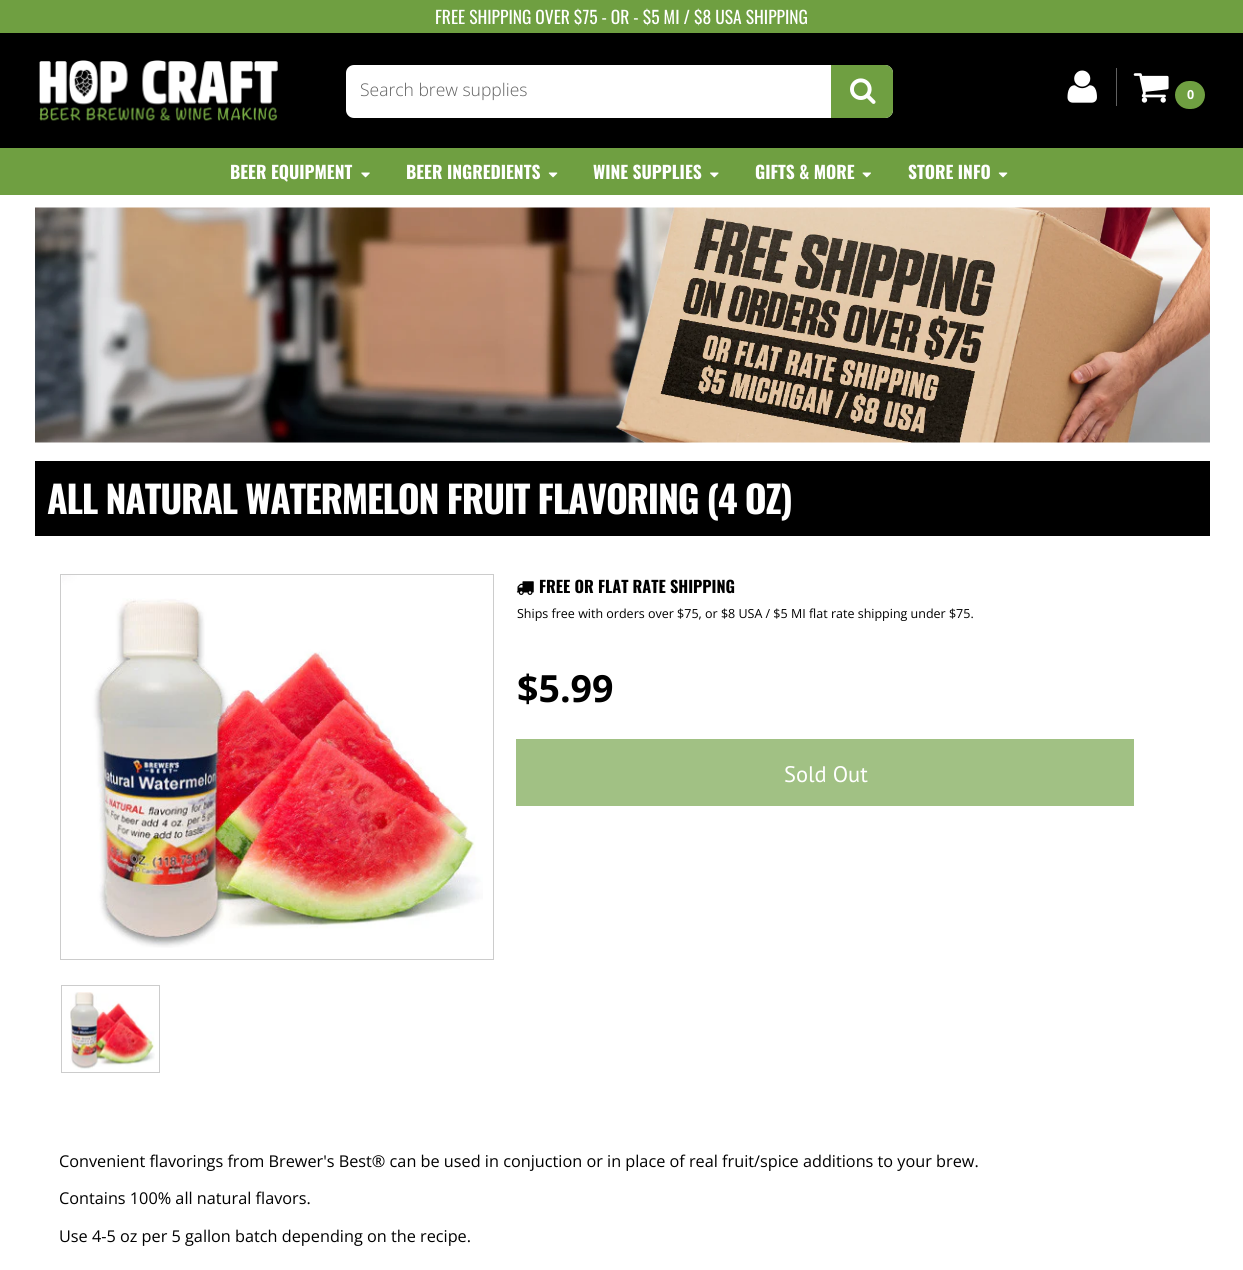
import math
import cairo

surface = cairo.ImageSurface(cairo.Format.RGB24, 1243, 1270)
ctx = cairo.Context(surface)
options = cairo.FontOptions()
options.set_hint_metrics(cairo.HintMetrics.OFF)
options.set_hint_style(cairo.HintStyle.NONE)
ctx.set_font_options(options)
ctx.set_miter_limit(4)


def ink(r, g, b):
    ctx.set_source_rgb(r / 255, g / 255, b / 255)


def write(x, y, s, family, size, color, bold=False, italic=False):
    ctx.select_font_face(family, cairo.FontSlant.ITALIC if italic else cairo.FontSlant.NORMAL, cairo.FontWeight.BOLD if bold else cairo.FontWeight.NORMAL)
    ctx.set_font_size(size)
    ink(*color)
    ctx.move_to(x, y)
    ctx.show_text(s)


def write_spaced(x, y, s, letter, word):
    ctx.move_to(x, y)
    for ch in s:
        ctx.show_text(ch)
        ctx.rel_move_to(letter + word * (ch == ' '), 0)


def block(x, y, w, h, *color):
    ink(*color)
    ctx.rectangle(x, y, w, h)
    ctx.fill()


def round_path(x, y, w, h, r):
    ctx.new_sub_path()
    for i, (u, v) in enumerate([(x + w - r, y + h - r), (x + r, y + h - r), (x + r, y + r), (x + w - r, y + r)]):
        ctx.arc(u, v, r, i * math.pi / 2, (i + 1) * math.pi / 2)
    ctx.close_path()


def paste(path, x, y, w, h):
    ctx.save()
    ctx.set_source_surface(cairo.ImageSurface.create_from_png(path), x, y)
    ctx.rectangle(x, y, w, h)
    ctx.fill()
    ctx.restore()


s1 = dict(family="Oswald", size=17.5, color=(255, 255, 255))
s2 = dict(family="Open Sans Light", size=17.5, color=(96, 96, 96))
s3 = dict(family="Open Sans", size=12.5, color=(255, 255, 255), bold=True)
s4 = dict(family="Oswald", size=17.5, color=(255, 255, 255), bold=True)
s5 = dict(family="Oswald", size=16.25, color=(0, 0, 0), bold=True)
s6 = dict(family="Open Sans", size=12.5, color=(0, 0, 0))
s7 = dict(family="Open Sans", size=37.5, color=(0, 0, 0), bold=True)
s8 = dict(family="PT Sans", size=22.5, color=(255, 255, 255))
s9 = dict(family="Open Sans", size=16.25, color=(0, 0, 0))

ink(255, 255, 255)
ctx.paint()
block(0, 0, 1243, 33, 111, 159, 65)
write(435, 24, "FREE SHIPPING OVER $75 - OR - $5 MI / $8 USA SHIPPING", **s1)
block(0, 33, 1243, 115, 0, 0, 0)
paste("pic1.png", 39, 60, 239, 61)
ink(255, 255, 255)
round_path(346, 65, 547, 53, 8)
ctx.fill()
write(360, 96, "Search brew supplies", **s2)
ink(111, 159, 65)
ctx.new_path()
ctx.move_to(831, 65)
ctx.line_to(885, 65)
ctx.curve_to(889.5, 65, 893, 68.5, 893, 73)
ctx.line_to(893, 110)
ctx.curve_to(893, 114.5, 889.5, 118, 885, 118)
ctx.line_to(831, 118)
ctx.close_path()
ctx.fill()
paste("pic2.png", 850, 78, 26, 26)
block(1116, 68, 1, 38, 96, 96, 96)
paste("pic3.png", 1067, 70, 30, 33)
paste("pic4.png", 1133, 73, 36, 30)
ink(111, 159, 65)
round_path(1177.5, 83.5, 25, 23, 11.5)
ctx.fill_preserve()
ctx.set_line_width(5)
ctx.stroke()
write(1187, 99, "0", **s3)
block(0, 148, 1243, 47, 111, 159, 65)
write(230, 179, "BEER EQUIPMENT", **s4)
paste("pic5.png", 361, 172, 9, 6)
write(406, 179, "BEER INGREDIENTS", **s4)
paste("pic6.png", 548, 172, 10, 6)
write(593, 179, "WINE SUPPLIES", **s4)
paste("pic7.png", 710, 172, 9, 6)
write(755, 179, "GIFTS & MORE", **s4)
paste("pic8.png", 862, 172, 9, 6)
write(908, 179, "STORE INFO", **s4)
paste("pic6.png", 998, 172, 10, 6)
paste("pic9.png", 35, 207, 1175, 236)
block(35, 461, 1175, 75, 0, 0, 0)
ctx.set_font_size(37.5)
ink(255, 255, 255)
write_spaced(47, 514, "ALL NATURAL WATERMELON FRUIT FLAVORING (4 OZ)", -1.25, 0)
ctx.rectangle(60.5, 574.5, 433, 385)
ink(204, 204, 204)
ctx.set_line_width(1)
ctx.stroke()
paste("pic10.png", 62, 575, 421, 373)
ctx.rectangle(61.5, 985.5, 98, 87)
ctx.stroke()
paste("pic11.png", 70, 992, 85, 78)
paste("pic12.png", 516, 581, 18, 14)
write(539, 593, "FREE OR FLAT RATE SHIPPING", **s5)
write(517, 618, "Ships free with orders over $75, or $8 USA / $5 MI flat rate shipping under $75.", **s6)
write(517, 702, "$5.99", **s7)
block(516, 739, 618, 67, 161, 193, 132)
write(784, 782, "Sold Out", **s8)
write(59, 1167, "Convenient flavorings from Brewer's Best® can be used in conjuction or in place of real fruit/spice additions to your brew.", **s9)
write(59, 1204, "Contains 100% all natural flavors.", **s9)
write(59, 1242, "Use 4-5 oz per 5 gallon batch depending on the recipe.", **s9)
surface.write_to_png("screenshot.png")
